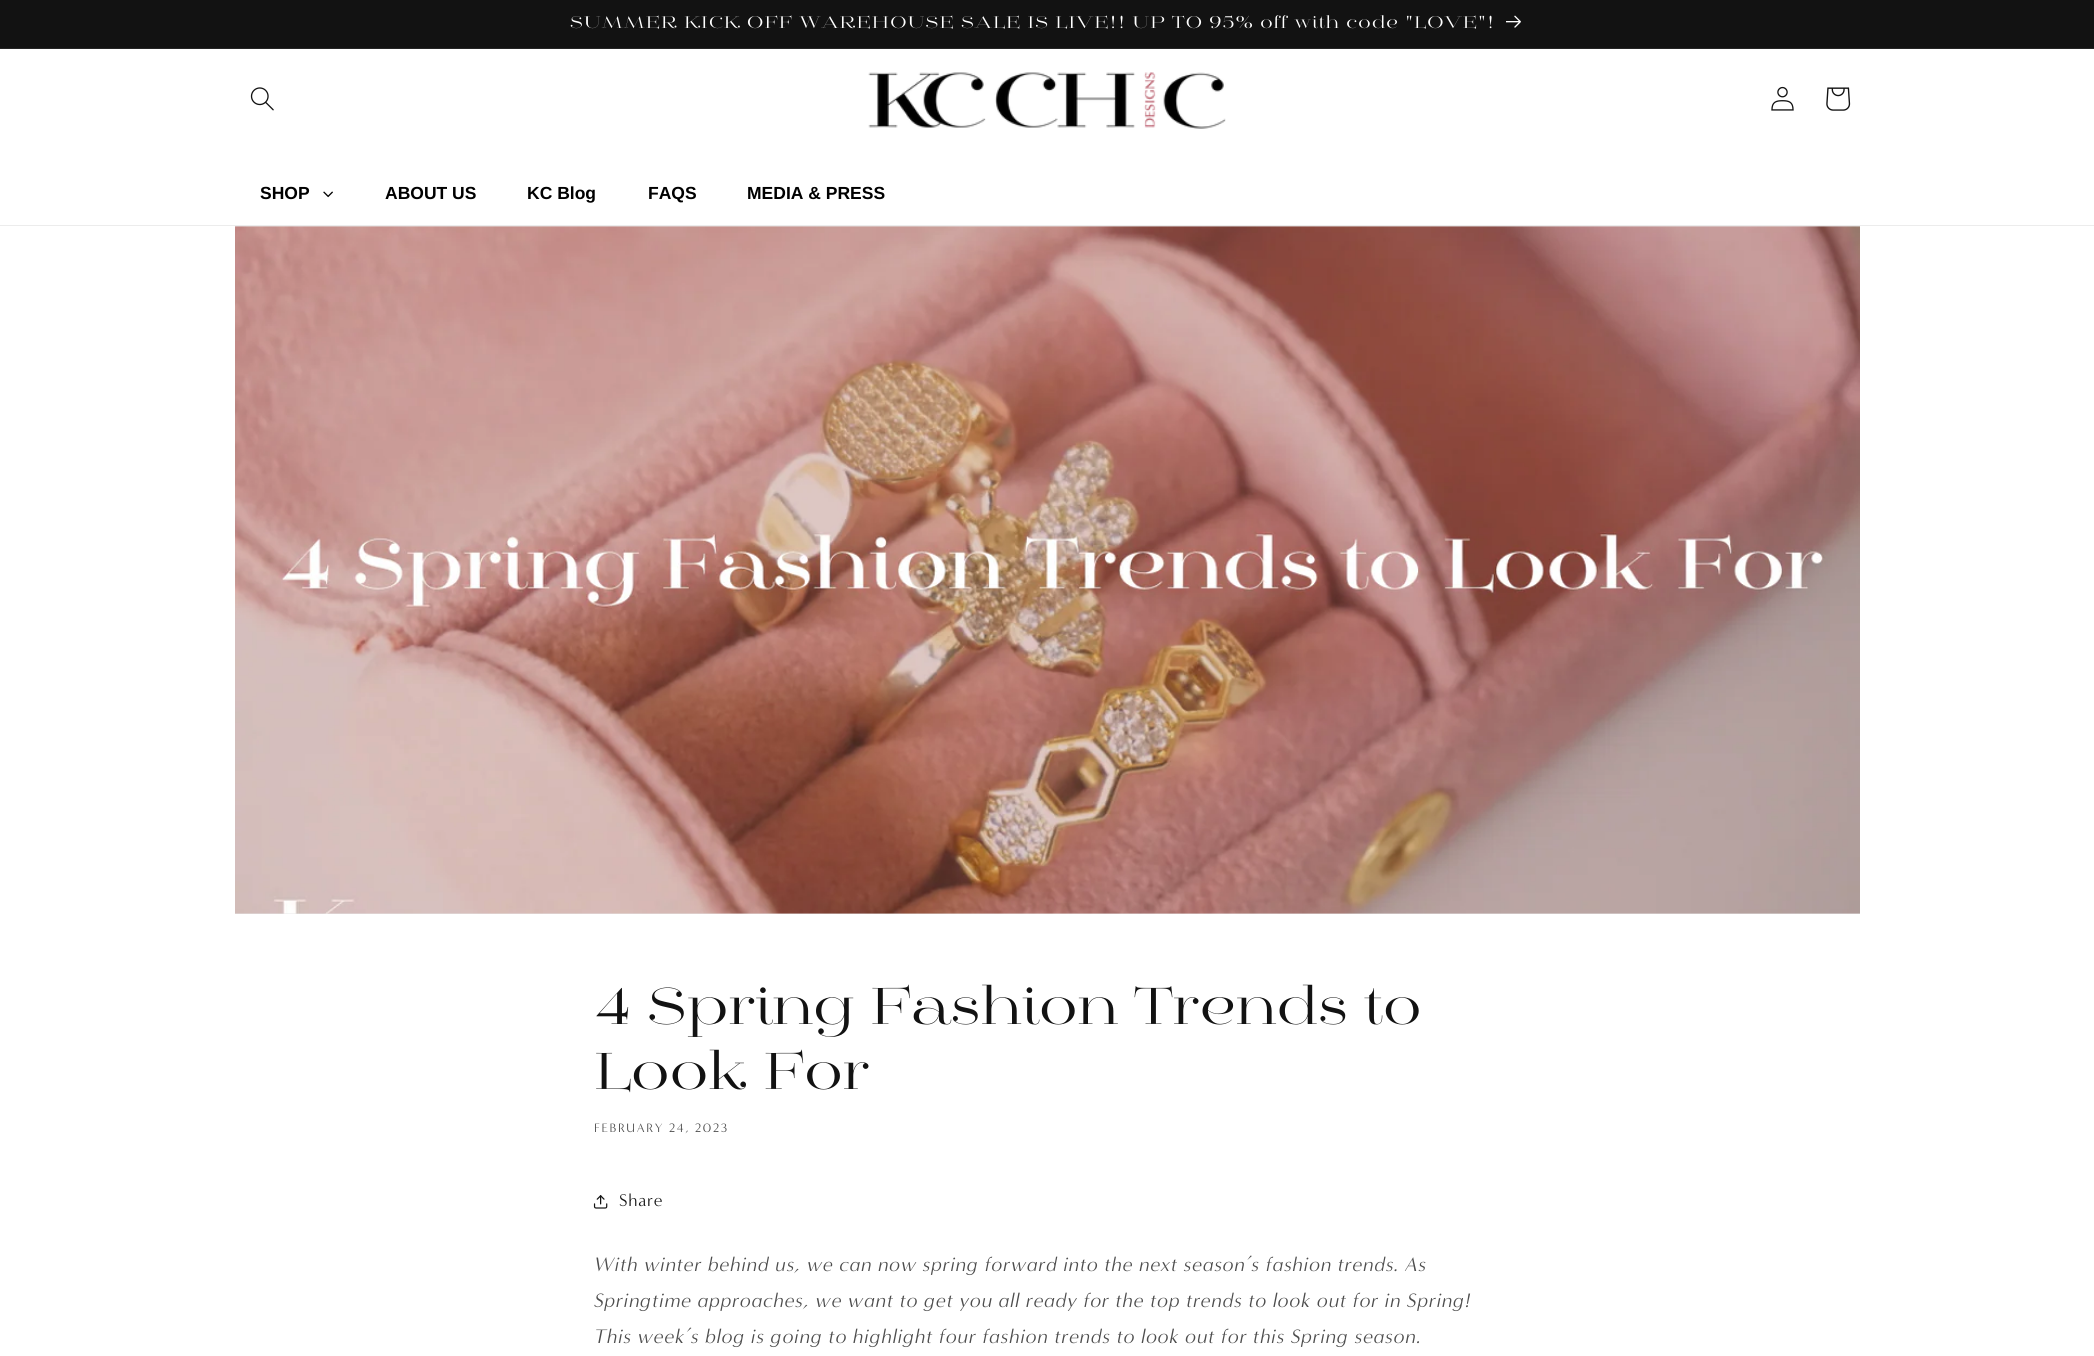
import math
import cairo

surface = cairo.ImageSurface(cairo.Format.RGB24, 2094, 1356)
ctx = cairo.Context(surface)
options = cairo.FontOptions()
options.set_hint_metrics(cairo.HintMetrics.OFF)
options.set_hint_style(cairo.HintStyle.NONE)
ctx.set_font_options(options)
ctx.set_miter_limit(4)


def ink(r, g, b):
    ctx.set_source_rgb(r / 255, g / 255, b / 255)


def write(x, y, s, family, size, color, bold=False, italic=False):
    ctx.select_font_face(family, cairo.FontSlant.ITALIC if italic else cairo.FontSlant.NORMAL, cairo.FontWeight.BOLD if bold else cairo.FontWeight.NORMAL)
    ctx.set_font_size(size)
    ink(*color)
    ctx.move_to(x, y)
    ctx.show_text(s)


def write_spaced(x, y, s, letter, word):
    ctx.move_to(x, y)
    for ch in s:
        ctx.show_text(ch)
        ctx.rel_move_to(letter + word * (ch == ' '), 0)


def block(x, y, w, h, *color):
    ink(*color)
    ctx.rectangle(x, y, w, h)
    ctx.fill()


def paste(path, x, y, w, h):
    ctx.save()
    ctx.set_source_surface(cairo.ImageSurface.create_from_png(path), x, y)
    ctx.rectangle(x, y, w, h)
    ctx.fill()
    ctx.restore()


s1 = dict(family="Liberation Sans", size=17.5, color=(0, 0, 0), bold=True)

ink(255, 255, 255)
ctx.paint()
block(0, 0, 2094, 48, 18, 18, 18)
block(0, 48, 2094, 1, 37, 37, 37)
ctx.select_font_face("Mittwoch")
ctx.set_font_size(16.25)
ink(255, 255, 255)
write_spaced(570, 28, "SUMMER KICK OFF WAREHOUSE SALE IS LIVE!! UP TO 95% off with code \"LOVE\"!", 1.25, 0)
paste("pic1.png", 1506, 15, 15, 13)
block(0, 225, 2094, 1, 236, 236, 236)
paste("pic2.png", 250, 87, 24, 24)
paste("pic3.png", 868, 72, 358, 57)
paste("pic4.png", 1771, 86, 23, 25)
paste("pic5.png", 1826, 87, 25, 24)
write(260, 199, "SHOP", **s1)
paste("pic6.png", 323, 191, 10, 7)
write(385, 199, "ABOUT US", **s1)
write(527, 199, "KC Blog", **s1)
write(648, 199, "FAQS", **s1)
write(747, 199, "MEDIA & PRESS", **s1)
block(235, 226, 1625, 688, 232, 232, 232)
paste("pic7.png", 235, 226, 1625, 688)
ctx.select_font_face("Mittwoch")
ctx.set_font_size(50)
ink(18, 18, 18)
write_spaced(594, 1024, "4 Spring Fashion Trends to", 0.75, 0)
write_spaced(594, 1089, "Look For", 0.75, 0)
ctx.select_font_face("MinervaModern")
ctx.set_font_size(12.5)
ink(77, 77, 77)
write_spaced(594, 1132, "FEBRUARY 24, 2023", 1.6, 0)
paste("pic8.png", 593, 1195, 15, 14)
ctx.set_font_size(17.5)
ink(18, 18, 18)
write_spaced(619, 1206, "Share", 0.75, 0)
ctx.select_font_face("MinervaModern Medium", cairo.FontSlant.ITALIC)
ctx.set_font_size(20)
ink(77, 77, 77)
write_spaced(594, 1271, "With winter behind us, we can now spring forward into the next season’s fashion trends. As", 0.75, 0)
write_spaced(594, 1307, "Springtime approaches, we want to get you all ready for the top trends to look out for in Spring!", 0.75, 0)
write_spaced(594, 1343, "This week’s blog is going to highlight four fashion trends to look out for this Spring season.", 0.75, 0)
surface.write_to_png("screenshot.png")
